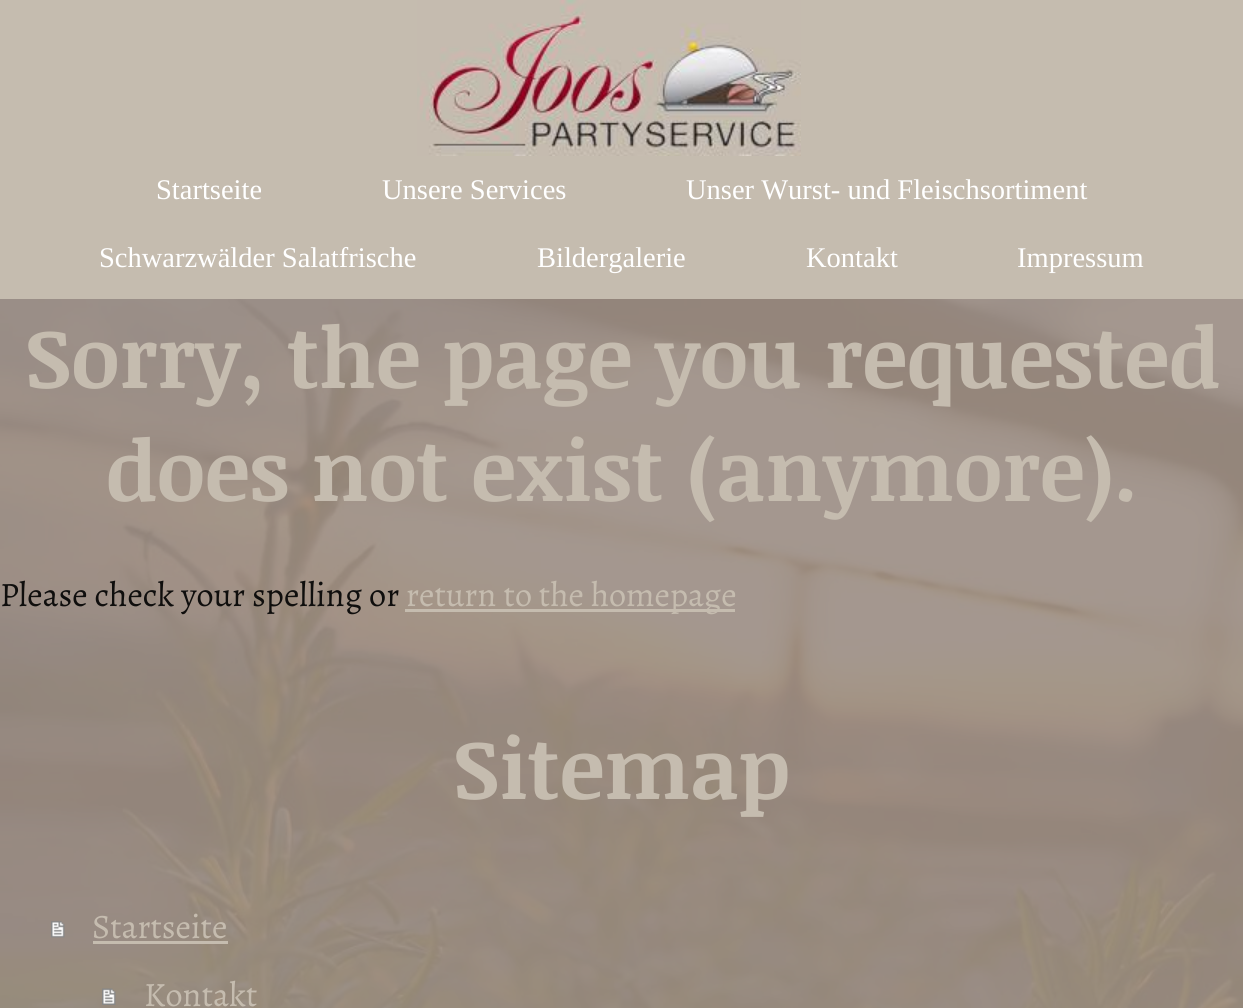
import math
import cairo

surface = cairo.ImageSurface(cairo.Format.RGB24, 1243, 1008)
ctx = cairo.Context(surface)
options = cairo.FontOptions()
options.set_hint_metrics(cairo.HintMetrics.OFF)
options.set_hint_style(cairo.HintStyle.NONE)
ctx.set_font_options(options)
ctx.set_miter_limit(4)


def ink(r, g, b):
    ctx.set_source_rgb(r / 255, g / 255, b / 255)


def write(x, y, s, family, size, color, bold=False, italic=False):
    ctx.select_font_face(family, cairo.FontSlant.ITALIC if italic else cairo.FontSlant.NORMAL, cairo.FontWeight.BOLD if bold else cairo.FontWeight.NORMAL)
    ctx.set_font_size(size)
    ink(*color)
    ctx.move_to(x, y)
    ctx.show_text(s)


def block(x, y, w, h, *color):
    ink(*color)
    ctx.rectangle(x, y, w, h)
    ctx.fill()


def paste(path, x, y, w, h):
    ctx.save()
    ctx.set_source_surface(cairo.ImageSurface.create_from_png(path), x, y)
    ctx.rectangle(x, y, w, h)
    ctx.fill()
    ctx.restore()


s1 = dict(family="Liberation Serif", size=28.5, color=(255, 255, 255))
s2 = dict(family="Noticia Text", size=84.2, color=(197, 188, 175), bold=True)
s3 = dict(family="Alegreya", size=34.25, color=(15, 14, 13))
s4 = dict(family="Alegreya", size=34.25, color=(197, 188, 175))

ink(255, 255, 255)
ctx.paint()
paste("pic1.png", 0, 299, 1243, 709)
block(0, 0, 1243, 299, 197, 188, 175)
paste("pic2.png", 417, 0, 384, 156)
write(156, 199, "Startseite", **s1)
write(382, 199, "Unsere Services", **s1)
write(686, 199, "Unser Wurst- und Fleischsortiment", **s1)
write(99, 267, "Schwarzwälder Salatfrische", **s1)
write(537, 267, "Bildergalerie", **s1)
write(806, 267, "Kontakt", **s1)
write(1017, 267, "Impressum", **s1)
ctx.set_source_rgba(0.604, 0.549, 0.514, 0.9)
ctx.rectangle(0, 299, 1243, 709)
ctx.fill()
write(25, 388, "Sorry, the page you requested", **s2)
write(106, 501, "does not exist (anymore).", **s2)
write(0, 606, "Please check your spelling or", **s3)
block(405, 609, 330, 3, 197, 188, 175)
write(406, 606, "return to the homepage", **s4)
write(453, 799, "Sitemap", **s2)
paste("pic3.png", 51, 921, 14, 17)
write(92, 938, "Startseite", **s4)
block(93, 941, 135, 3, 197, 188, 175)
paste("pic4.png", 102, 988, 14, 17)
write(144, 1006, "Kontakt", **s4)
surface.write_to_png("screenshot.png")
